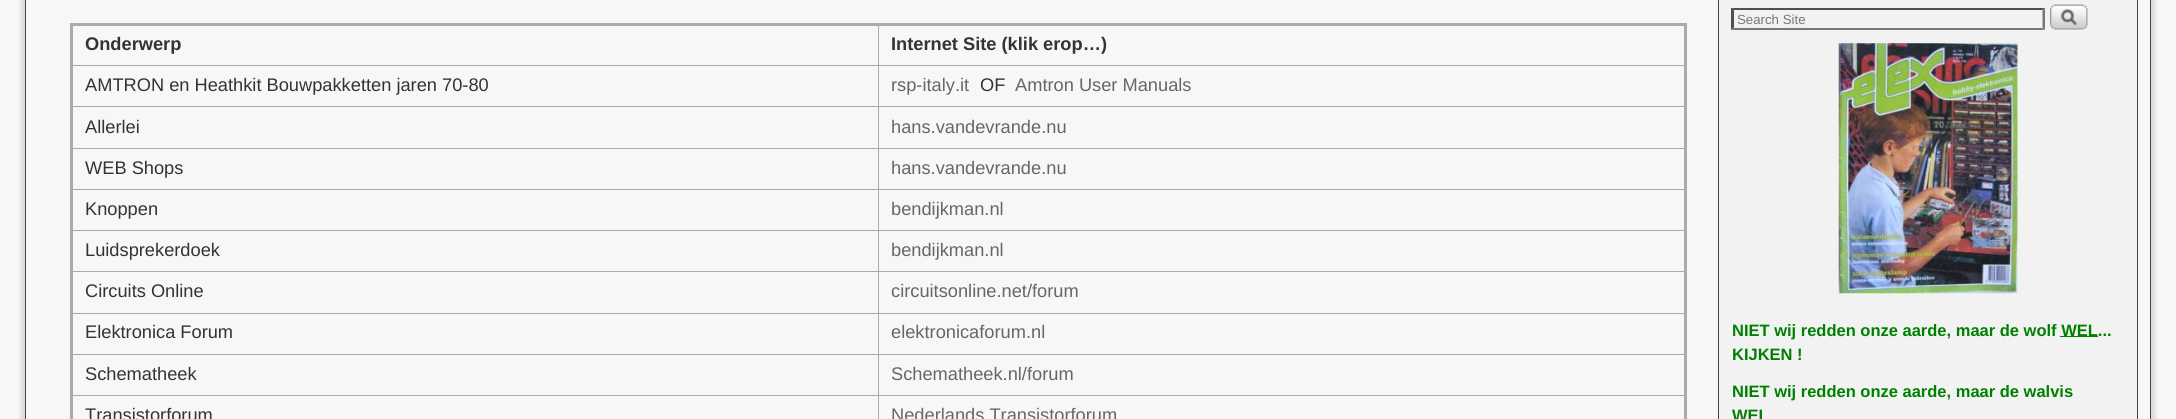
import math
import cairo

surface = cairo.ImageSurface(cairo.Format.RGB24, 2176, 419)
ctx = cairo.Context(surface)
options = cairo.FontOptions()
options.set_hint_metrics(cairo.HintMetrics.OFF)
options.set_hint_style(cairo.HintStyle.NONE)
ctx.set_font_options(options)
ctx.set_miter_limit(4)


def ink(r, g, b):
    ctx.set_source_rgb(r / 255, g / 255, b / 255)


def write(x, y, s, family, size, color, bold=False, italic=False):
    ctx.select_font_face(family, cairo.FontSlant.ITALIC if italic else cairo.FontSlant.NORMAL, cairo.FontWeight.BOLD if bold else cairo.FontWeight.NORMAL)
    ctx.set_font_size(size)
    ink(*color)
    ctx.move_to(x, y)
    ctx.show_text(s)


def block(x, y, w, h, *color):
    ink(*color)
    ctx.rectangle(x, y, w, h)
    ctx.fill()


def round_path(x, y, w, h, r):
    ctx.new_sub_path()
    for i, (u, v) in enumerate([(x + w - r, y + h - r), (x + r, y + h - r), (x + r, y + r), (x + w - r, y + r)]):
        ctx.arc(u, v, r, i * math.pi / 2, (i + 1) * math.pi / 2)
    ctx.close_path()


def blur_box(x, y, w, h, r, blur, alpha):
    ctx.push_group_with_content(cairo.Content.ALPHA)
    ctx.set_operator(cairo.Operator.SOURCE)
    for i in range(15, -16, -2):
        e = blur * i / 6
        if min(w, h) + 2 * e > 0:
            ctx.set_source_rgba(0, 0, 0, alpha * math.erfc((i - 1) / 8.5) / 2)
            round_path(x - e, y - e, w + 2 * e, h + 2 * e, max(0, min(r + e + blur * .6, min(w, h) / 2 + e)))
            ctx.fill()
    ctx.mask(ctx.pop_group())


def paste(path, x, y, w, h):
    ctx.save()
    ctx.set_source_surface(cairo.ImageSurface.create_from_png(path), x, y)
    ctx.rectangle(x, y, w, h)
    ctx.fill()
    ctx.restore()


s1 = dict(family="Liberation Sans", size=18.25, color=(51, 51, 51), bold=True)
s2 = dict(family="Liberation Sans", size=18.25, color=(51, 51, 51))
s3 = dict(family="Liberation Sans", size=18.25, color=(102, 102, 102))
s4 = dict(family="Liberation Sans", size=13.25, color=(117, 117, 117))
s5 = dict(family="Liberation Sans", size=16.5, color=(0, 128, 0), bold=True)

ink(247, 247, 247)
ctx.paint()
ctx.save()
ctx.set_fill_rule(cairo.FillRule.EVEN_ODD)
ctx.new_path()
ctx.move_to(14, 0)
ctx.line_to(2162, 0)
ctx.line_to(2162, 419)
ctx.line_to(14, 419)
ctx.close_path()
ctx.move_to(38, -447)
ctx.line_to(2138, -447)
ctx.curve_to(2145, -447, 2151, -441, 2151, -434)
ctx.line_to(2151, 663)
ctx.curve_to(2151, 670, 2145, 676, 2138, 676)
ctx.line_to(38, 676)
ctx.curve_to(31, 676, 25, 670, 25, 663)
ctx.line_to(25, -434)
ctx.curve_to(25, -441, 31, -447, 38, -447)
ctx.close_path()
ctx.clip()
ink(127, 127, 127)
blur_box(21, -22, 2134, 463, 16, 2, 0.25)
ctx.restore()
ctx.rectangle(25.5, -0.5, 2125, 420)
ink(68, 68, 68)
ctx.set_line_width(1)
ctx.stroke()
block(878, 65, 808, 1, 170, 170, 170)
block(878, 106, 808, 1, 170, 170, 170)
block(878, 148, 808, 1, 170, 170, 170)
block(878, 189, 808, 1, 170, 170, 170)
block(878, 230, 808, 1, 170, 170, 170)
block(878, 271, 808, 1, 170, 170, 170)
block(878, 313, 808, 1, 170, 170, 170)
block(878, 354, 808, 1, 170, 170, 170)
block(878, 395, 808, 1, 170, 170, 170)
block(878, 395, 1, 24, 170, 170, 170)
block(71, 395, 808, 1, 170, 170, 170)
block(878, 354, 1, 42, 170, 170, 170)
block(71, 354, 808, 1, 170, 170, 170)
block(878, 313, 1, 42, 170, 170, 170)
block(71, 313, 808, 1, 170, 170, 170)
block(878, 271, 1, 43, 170, 170, 170)
block(71, 271, 808, 1, 170, 170, 170)
block(878, 230, 1, 43, 170, 170, 170)
block(71, 230, 808, 1, 170, 170, 170)
block(878, 189, 1, 42, 170, 170, 170)
block(71, 189, 808, 1, 170, 170, 170)
block(878, 148, 1, 42, 170, 170, 170)
block(71, 148, 808, 1, 170, 170, 170)
block(878, 106, 1, 43, 170, 170, 170)
block(71, 106, 808, 1, 170, 170, 170)
block(878, 65, 1, 43, 170, 170, 170)
block(71, 65, 808, 1, 170, 170, 170)
block(878, 24, 1, 42, 170, 170, 170)
block(70, 23, 1616, 3, 170, 170, 170)
block(1684, 23, 3, 396, 170, 170, 170)
block(70, 23, 3, 396, 170, 170, 170)
write(85, 50, "Onderwerp", **s1)
write(891, 50, "Internet Site (klik erop…)", **s1)
write(85, 91, "AMTRON en Heathkit Bouwpakketten jaren 70-80", **s2)
write(891, 91, "rsp-italy.it", **s3)
write(980, 91, "OF", **s2)
write(1015, 91, "Amtron User Manuals", **s3)
write(85, 133, "Allerlei", **s2)
write(891, 133, "hans.vandevrande.nu", **s3)
write(85, 174, "WEB Shops", **s2)
write(891, 174, "hans.vandevrande.nu", **s3)
write(85, 215, "Knoppen", **s2)
write(891, 215, "bendijkman.nl", **s3)
write(85, 256, "Luidsprekerdoek", **s2)
write(891, 256, "bendijkman.nl", **s3)
write(85, 297, "Circuits Online", **s2)
write(891, 297, "circuitsonline.net/forum", **s3)
write(85, 338, "Elektronica Forum", **s2)
write(891, 338, "elektronicaforum.nl", **s3)
write(85, 380, "Schematheek", **s2)
write(891, 380, "Schematheek.nl/forum", **s3)
write(85, 421, "Transistorforum", **s2)
write(891, 421, "Nederlands Transistorforum", **s3)
ink(242, 242, 242)
ctx.rectangle(1718.5, -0.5, 419, 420)
ctx.fill_preserve()
ink(68, 68, 68)
ctx.stroke()
ink(79, 79, 79)
ctx.new_path()
ctx.move_to(1731, 8)
ctx.line_to(2045, 8)
ctx.line_to(2042, 10)
ctx.line_to(1734, 10)
ctx.close_path()
ctx.fill()
ink(118, 118, 118)
ctx.new_path()
ctx.move_to(2045, 7.5)
ctx.line_to(2045, 30)
ctx.line_to(2042.5, 27.5)
ctx.line_to(2042.5, 10)
ctx.close_path()
ctx.fill()
ctx.new_path()
ctx.move_to(2045, 30)
ctx.line_to(1731, 30)
ctx.line_to(1734, 28)
ctx.line_to(2042, 28)
ctx.close_path()
ctx.fill()
ink(79, 79, 79)
ctx.new_path()
ctx.move_to(1731, 30)
ctx.line_to(1731, 7.5)
ctx.line_to(1734, 10)
ctx.line_to(1734, 27.5)
ctx.close_path()
ctx.fill()
write(1737, 24, "Search Site", **s4)
paste("pic1.png", 2050, 4, 38, 26)
paste("pic2.png", 1838, 43, 180, 251)
write(1732, 336, "NIET wij redden onze aarde, maar de wolf WEL...", **s5)
block(2060, 336, 38, 1, 0, 128, 0)
write(1732, 360, "KIJKEN !", **s5)
write(1732, 397, "NIET wij redden onze aarde, maar de walvis", **s5)
write(1732, 421, "WEL", **s5)
surface.write_to_png("screenshot.png")
